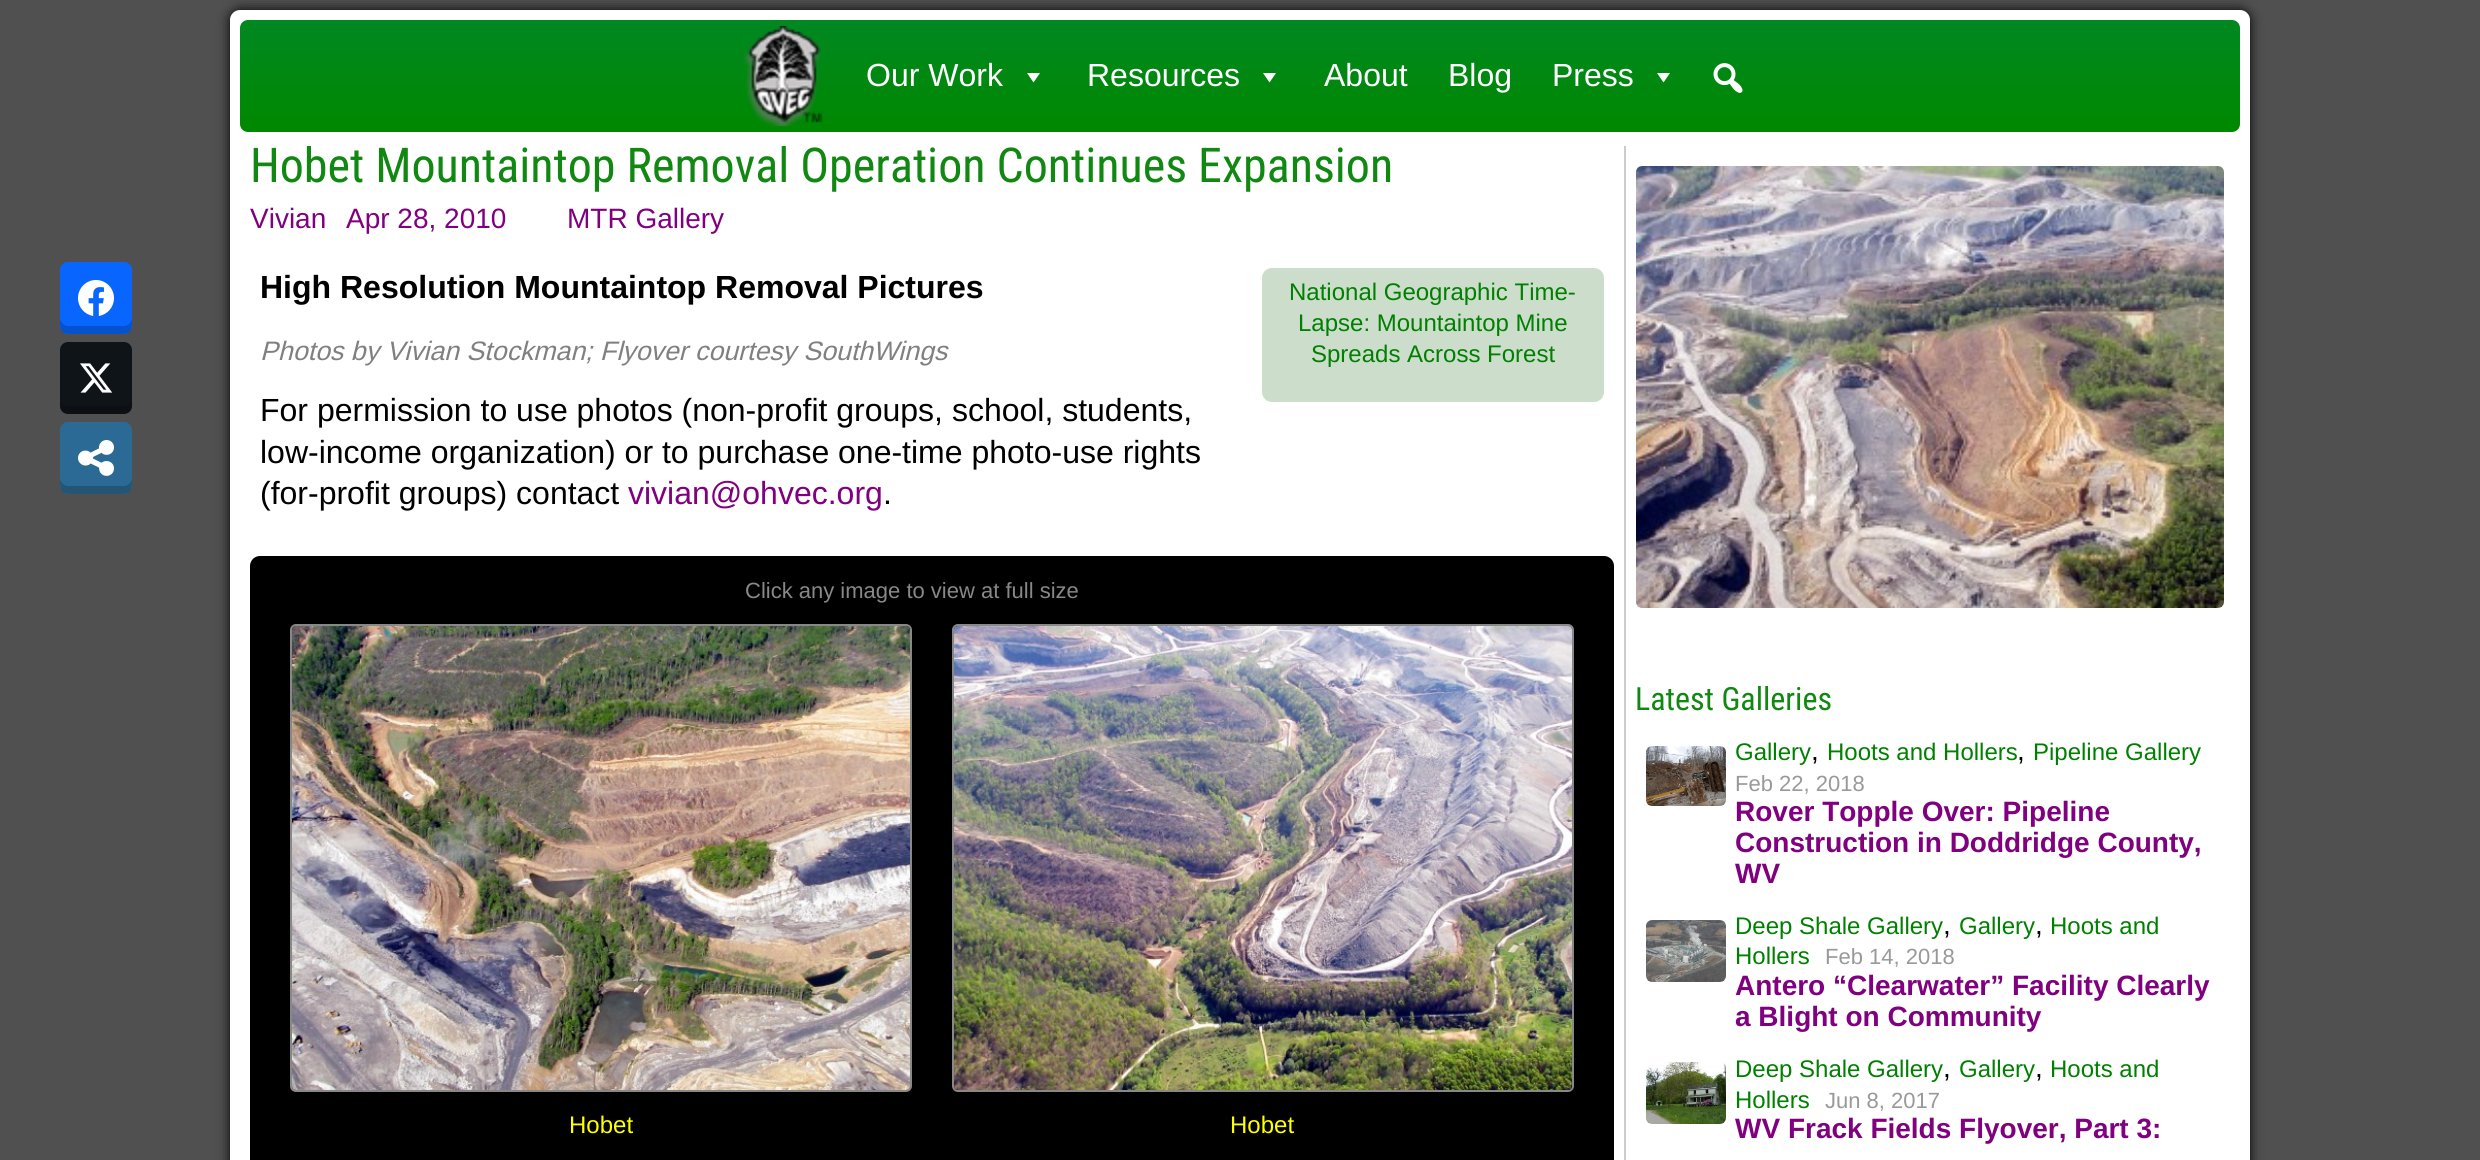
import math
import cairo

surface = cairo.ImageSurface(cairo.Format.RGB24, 2480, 1160)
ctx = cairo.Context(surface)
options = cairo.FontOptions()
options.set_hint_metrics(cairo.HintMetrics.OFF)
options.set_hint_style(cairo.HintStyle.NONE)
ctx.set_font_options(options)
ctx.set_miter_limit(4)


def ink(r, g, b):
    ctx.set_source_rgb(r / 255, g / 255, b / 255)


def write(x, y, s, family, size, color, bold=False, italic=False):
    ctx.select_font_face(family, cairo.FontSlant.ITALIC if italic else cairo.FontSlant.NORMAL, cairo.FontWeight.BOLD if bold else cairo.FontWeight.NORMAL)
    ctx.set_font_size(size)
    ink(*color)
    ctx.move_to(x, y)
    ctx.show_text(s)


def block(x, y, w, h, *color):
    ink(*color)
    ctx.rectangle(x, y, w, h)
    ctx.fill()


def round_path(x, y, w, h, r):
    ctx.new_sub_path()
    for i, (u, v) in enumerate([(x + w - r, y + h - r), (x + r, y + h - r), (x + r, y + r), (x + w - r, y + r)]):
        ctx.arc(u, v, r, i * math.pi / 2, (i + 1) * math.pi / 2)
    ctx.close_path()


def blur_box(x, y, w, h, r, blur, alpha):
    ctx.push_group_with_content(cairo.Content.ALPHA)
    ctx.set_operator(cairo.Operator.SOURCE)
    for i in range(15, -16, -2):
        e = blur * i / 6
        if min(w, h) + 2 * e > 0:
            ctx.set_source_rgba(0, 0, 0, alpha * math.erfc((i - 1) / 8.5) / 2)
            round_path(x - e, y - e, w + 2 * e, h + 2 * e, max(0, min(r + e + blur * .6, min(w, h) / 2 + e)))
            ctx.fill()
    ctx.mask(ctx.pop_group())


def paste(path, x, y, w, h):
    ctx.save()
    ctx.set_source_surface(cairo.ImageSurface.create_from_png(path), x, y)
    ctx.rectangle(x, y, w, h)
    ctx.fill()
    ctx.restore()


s1 = dict(family="Liberation Sans", size=32, color=(255, 255, 255))
s2 = dict(family="Roboto Condensed", size=48, color=(17, 136, 17))
s3 = dict(family="Liberation Sans", size=28, color=(128, 0, 128))
s4 = dict(family="Arimo", size=32, color=(0, 0, 0), bold=True)
s5 = dict(family="Arimo", size=26.7, color=(128, 128, 128), italic=True)
s6 = dict(family="Arimo", size=32, color=(0, 0, 0))
s7 = dict(family="Arimo", size=32, color=(128, 0, 128))
s8 = dict(family="Arimo", size=24, color=(0, 128, 0))
s9 = dict(family="Arimo", size=22, color=(136, 136, 136))
s10 = dict(family="Arimo", size=24, color=(255, 255, 0))
s11 = dict(family="Roboto Condensed", size=32, color=(17, 136, 17))
s12 = dict(family="Liberation Sans", size=24, color=(0, 128, 0))
s13 = dict(family="Liberation Sans", size=28, color=(0, 0, 0))
s14 = dict(family="Liberation Sans", size=22, color=(153, 153, 153))
s15 = dict(family="Liberation Sans", size=28, color=(128, 0, 128), bold=True)

ink(80, 80, 80)
ctx.paint()
ink(0, 0, 0)
blur_box(230, 10, 2020, 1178, 10, 6, 1)
ink(255, 255, 255)
round_path(230, 10, 2020, 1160, 10)
ctx.fill()
gradient = cairo.LinearGradient(1240, 20, 1240, 132)
gradient.add_color_stop_rgba(0, 0, 0.533, 0.133, 1)
gradient.add_color_stop_rgba(1, 0, 0.533, 0, 1)
ctx.set_source(gradient)
round_path(240, 20, 2000, 112, 8)
ctx.fill()
paste("pic1.png", 743, 26, 80, 100)
write(866, 86, "Our Work", **s1)
ctx.new_path()
ctx.move_to(1040, 73)
ctx.line_to(1033.5, 82.5)
ctx.line_to(1027, 73)
ctx.close_path()
ctx.fill()
write(1087, 86, "Resources", **s1)
ctx.new_path()
ctx.move_to(1276, 73)
ctx.line_to(1269.5, 82.5)
ctx.line_to(1263, 73)
ctx.close_path()
ctx.fill()
write(1324, 86, "About", **s1)
write(1448, 86, "Blog", **s1)
write(1552, 86, "Press", **s1)
ctx.new_path()
ctx.move_to(1670, 73)
ctx.line_to(1663.5, 82.5)
ctx.line_to(1657, 73)
ctx.close_path()
ctx.fill()
paste("pic2.png", 1713, 63, 30, 30)
write(250, 182, "Hobet Mountaintop Removal Operation Continues Expansion", **s2)
write(250, 228, "Vivian", **s3)
write(346, 228, "Apr 28, 2010", **s3)
write(567, 228, "MTR Gallery", **s3)
ink(8, 102, 255)
round_path(60, 262, 72, 72, 8)
ctx.fill()
ctx.set_source_rgba(0, 0, 0, 0.2)
ctx.new_path()
ctx.move_to(60, 318)
ctx.curve_to(60, 334, 61, 334, 77, 334)
ctx.line_to(115, 334)
ctx.curve_to(131, 334, 132, 334, 132, 318)
ctx.curve_to(132, 322, 128, 326, 124, 326)
ctx.line_to(68, 326)
ctx.curve_to(64, 326, 60, 322, 60, 318)
ctx.close_path()
ctx.fill()
paste("pic3.png", 78, 280, 36, 36)
ink(15, 20, 25)
round_path(60, 342, 72, 72, 8)
ctx.fill()
ctx.set_source_rgba(0, 0, 0, 0.2)
ctx.new_path()
ctx.move_to(60, 398)
ctx.curve_to(60, 414, 61, 414, 77, 414)
ctx.line_to(115, 414)
ctx.curve_to(131, 414, 132, 414, 132, 398)
ctx.curve_to(132, 402, 128, 406, 124, 406)
ctx.line_to(68, 406)
ctx.curve_to(64, 406, 60, 402, 60, 398)
ctx.close_path()
ctx.fill()
paste("pic4.png", 80, 363, 33, 30)
ink(43, 106, 148)
round_path(60, 422, 72, 72, 8)
ctx.fill()
ctx.set_source_rgba(0, 0, 0, 0.2)
ctx.new_path()
ctx.move_to(60, 478)
ctx.curve_to(60, 494, 61, 494, 77, 494)
ctx.line_to(115, 494)
ctx.curve_to(131, 494, 132, 494, 132, 478)
ctx.curve_to(132, 482, 128, 486, 124, 486)
ctx.line_to(68, 486)
ctx.curve_to(64, 486, 60, 482, 60, 478)
ctx.close_path()
ctx.fill()
paste("pic5.png", 78, 440, 36, 36)
write(260, 298, "High Resolution Mountaintop Removal Pictures", **s4)
write(260, 360, "Photos by Vivian Stockman; Flyover courtesy SouthWings", **s5)
write(260, 421, "For permission to use photos (non-profit groups, school, students,", **s6)
write(260, 463, "low-income organization) or to purchase one-time photo-use rights", **s6)
write(260, 504, "(for-profit groups) contact", **s6)
write(628, 504, "vivian@ohvec.org", **s7)
write(883, 504, ".", **s6)
ink(204, 221, 204)
round_path(1262, 268, 342, 134, 10)
ctx.fill()
write(1289, 300, "National Geographic Time-", **s8)
write(1298, 331, "Lapse: Mountaintop Mine", **s8)
write(1311, 362, "Spreads Across Forest", **s8)
ink(0, 0, 0)
round_path(250, 556, 1364, 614, 10)
ctx.fill()
write(745, 598, "Click any image to view at full size", **s9)
round_path(291, 625, 620, 466, 5)
ctx.stroke()
paste("pic6.png", 292, 626, 618, 464)
write(569, 1133, "Hobet", **s10)
round_path(953, 625, 620, 466, 5)
ink(136, 136, 136)
ctx.stroke()
paste("pic7.png", 954, 626, 618, 464)
write(1230, 1133, "Hobet", **s10)
block(1624, 146, 2, 1014, 204, 204, 204)
paste("pic8.png", 1636, 166, 588, 442)
write(1635, 710, "Latest Galleries", **s11)
paste("pic9.png", 1646, 746, 80, 60)
write(1735, 760, "Gallery", **s12)
write(1811, 760, ",", **s13)
write(1827, 760, "Hoots and Hollers", **s12)
write(2017, 760, ",", **s13)
write(2033, 760, "Pipeline Gallery", **s12)
write(1735, 791, "Feb 22, 2018", **s14)
write(1735, 821, "Rover Topple Over: Pipeline", **s15)
write(1735, 852, "Construction in Doddridge County,", **s15)
write(1735, 883, "WV", **s15)
paste("pic10.png", 1646, 920, 80, 62)
write(1735, 934, "Deep Shale Gallery", **s12)
write(1943, 934, ",", **s13)
write(1959, 934, "Gallery", **s12)
write(2035, 934, ",", **s13)
write(2050, 934, "Hoots and", **s12)
write(1735, 964, "Hollers", **s12)
write(1825, 964, "Feb 14, 2018", **s14)
write(1735, 995, "Antero “Clearwater” Facility Clearly", **s15)
write(1735, 1026, "a Blight on Community", **s15)
paste("pic11.png", 1646, 1062, 80, 62)
write(1735, 1077, "Deep Shale Gallery", **s12)
write(1943, 1077, ",", **s13)
write(1959, 1077, "Gallery", **s12)
write(2035, 1077, ",", **s13)
write(2050, 1077, "Hoots and", **s12)
write(1735, 1108, "Hollers", **s12)
write(1825, 1108, "Jun 8, 2017", **s14)
write(1735, 1138, "WV Frack Fields Flyover, Part 3:", **s15)
surface.write_to_png("screenshot.png")
